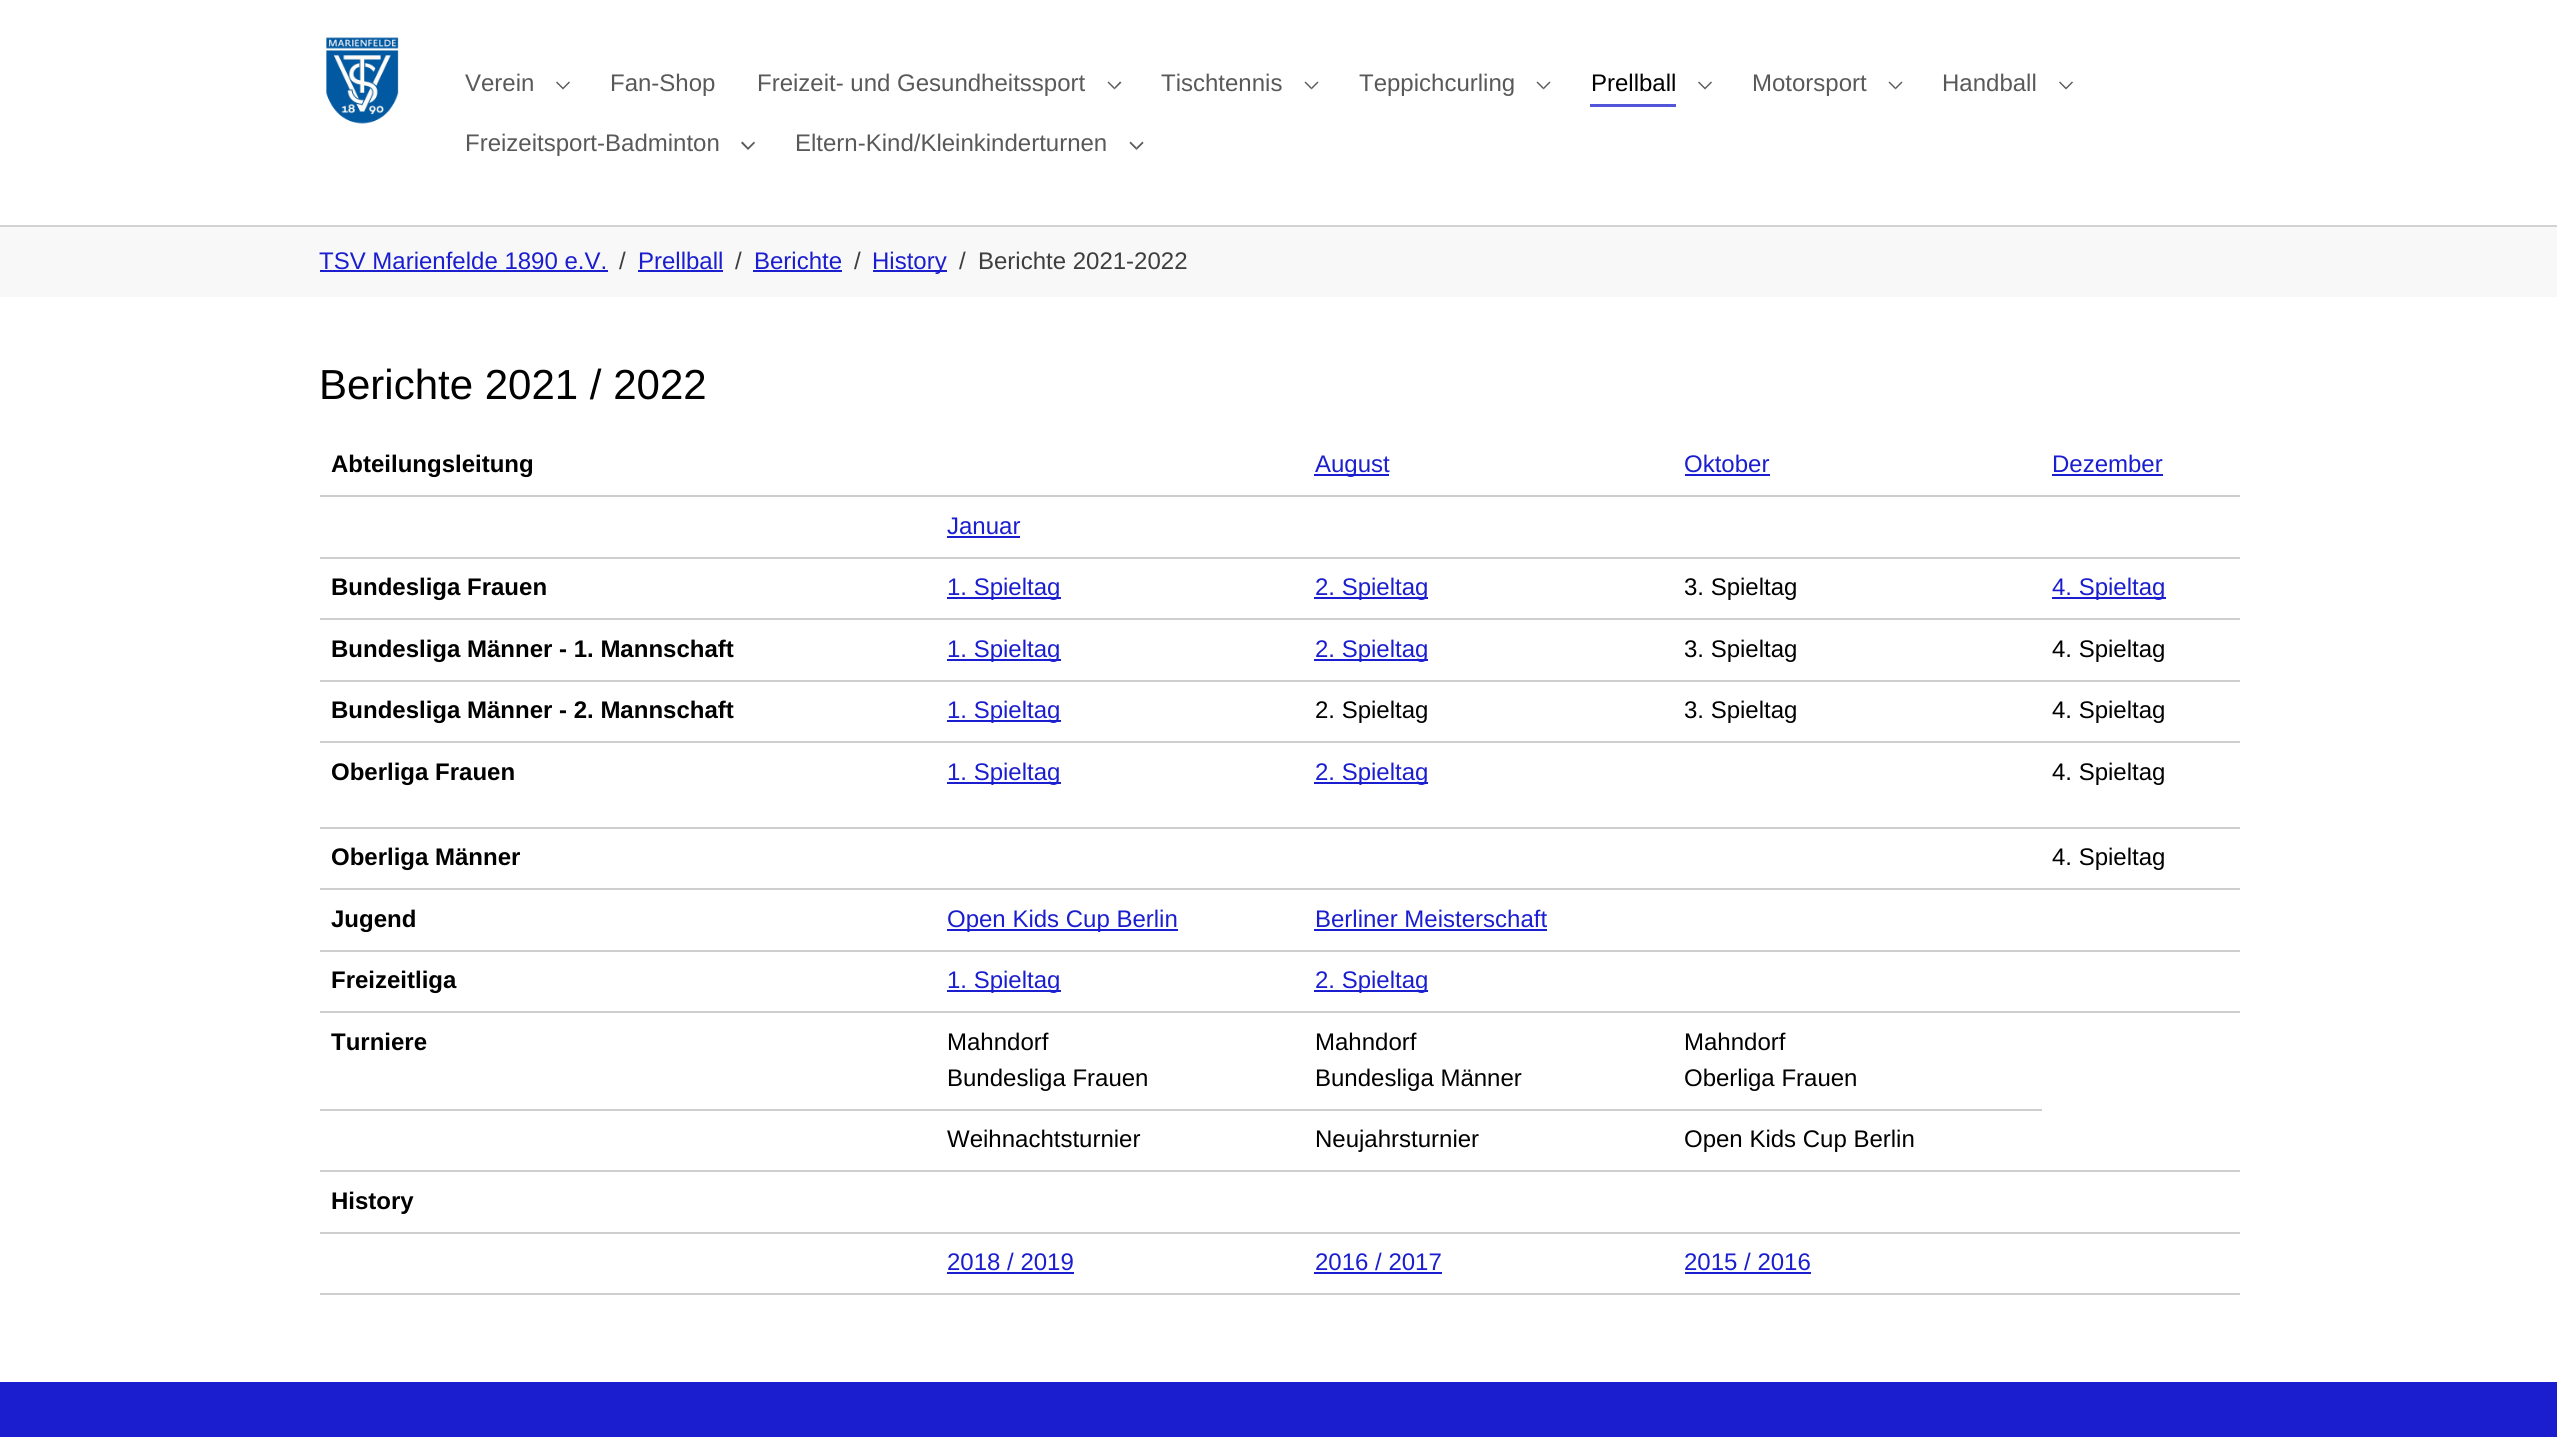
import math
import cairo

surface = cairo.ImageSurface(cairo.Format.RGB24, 2557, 1437)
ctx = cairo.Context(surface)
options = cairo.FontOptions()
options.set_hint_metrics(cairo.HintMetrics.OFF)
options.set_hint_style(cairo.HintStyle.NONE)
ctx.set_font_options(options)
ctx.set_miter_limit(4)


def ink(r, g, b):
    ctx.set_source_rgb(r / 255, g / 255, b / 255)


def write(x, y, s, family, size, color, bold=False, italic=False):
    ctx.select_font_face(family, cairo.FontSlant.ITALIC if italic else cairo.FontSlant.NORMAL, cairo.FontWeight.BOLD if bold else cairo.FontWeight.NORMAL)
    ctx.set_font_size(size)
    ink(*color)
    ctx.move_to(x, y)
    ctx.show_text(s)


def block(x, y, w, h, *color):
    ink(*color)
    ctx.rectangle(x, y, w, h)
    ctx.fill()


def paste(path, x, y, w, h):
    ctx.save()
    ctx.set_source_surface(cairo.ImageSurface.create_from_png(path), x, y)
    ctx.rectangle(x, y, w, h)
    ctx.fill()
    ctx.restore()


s1 = dict(family="Liberation Sans", size=24, color=(89, 89, 89))
s2 = dict(family="Liberation Sans", size=24, color=(0, 0, 0))
s3 = dict(family="Liberation Sans", size=24, color=(27, 30, 206))
s4 = dict(family="Liberation Sans", size=24, color=(62, 62, 62))
s5 = dict(family="Liberation Sans", size=42, color=(0, 0, 0))
s6 = dict(family="Liberation Sans", size=24, color=(0, 0, 0), bold=True)

ink(255, 255, 255)
ctx.paint()
ink(211, 211, 211)
ctx.new_path()
ctx.move_to(0, 225)
ctx.line_to(0, 227)
ctx.line_to(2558, 227)
ctx.line_to(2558, 2)
ctx.line_to(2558, 225)
ctx.close_path()
ctx.fill()
paste("pic1.png", 326, 37, 73, 87)
write(465, 91, "Verein", **s1)
ctx.new_path()
ctx.move_to(563, 89.5)
ctx.line_to(556, 82.5)
ctx.line_to(557, 81.5)
ctx.line_to(563, 87.5)
ctx.close_path()
ctx.move_to(570, 82.5)
ctx.line_to(563, 89.5)
ctx.line_to(563, 87.5)
ctx.line_to(569, 81.5)
ctx.close_path()
ctx.fill()
write(610, 91, "Fan-Shop", **s1)
write(757, 91, "Freizeit- und Gesundheitssport", **s1)
ctx.new_path()
ctx.move_to(1114.5, 89.5)
ctx.line_to(1107.5, 82.5)
ctx.line_to(1108.5, 81.5)
ctx.line_to(1114.5, 87.5)
ctx.close_path()
ctx.fill()
ctx.set_source_rgba(0, 0, 0, 0.65)
ctx.new_path()
ctx.move_to(1121.5, 82.5)
ctx.line_to(1114.5, 89.5)
ctx.line_to(1114.5, 87.5)
ctx.line_to(1120, 81.5)
ctx.close_path()
ctx.fill()
write(1161, 91, "Tischtennis", **s1)
ctx.new_path()
ctx.move_to(1311.5, 89.5)
ctx.line_to(1304.5, 82.5)
ctx.line_to(1305.5, 81.5)
ctx.line_to(1311.5, 87.5)
ctx.close_path()
ctx.fill()
ctx.set_source_rgba(0, 0, 0, 0.65)
ctx.new_path()
ctx.move_to(1318.5, 82.5)
ctx.line_to(1311.5, 89.5)
ctx.line_to(1311.5, 87.5)
ctx.line_to(1317.5, 81.5)
ctx.close_path()
ctx.fill()
write(1359, 91, "Teppichcurling", **s1)
ctx.new_path()
ctx.move_to(1543.5, 89.5)
ctx.line_to(1536.5, 82.5)
ctx.line_to(1537.5, 81.5)
ctx.line_to(1543.5, 87.5)
ctx.close_path()
ctx.fill()
ctx.set_source_rgba(0, 0, 0, 0.65)
ctx.new_path()
ctx.move_to(1550.5, 82.5)
ctx.line_to(1543.5, 89.5)
ctx.line_to(1543.5, 87.5)
ctx.line_to(1549.5, 81.5)
ctx.close_path()
ctx.fill()
write(1591, 91, "Prellball", **s2)
block(1590, 104, 86, 3, 84, 86, 218)
ink(89, 89, 89)
ctx.new_path()
ctx.move_to(1705, 89.5)
ctx.line_to(1698, 82.5)
ctx.line_to(1699, 81.5)
ctx.line_to(1705, 87.5)
ctx.close_path()
ctx.move_to(1712, 82.5)
ctx.line_to(1705, 89.5)
ctx.line_to(1705, 87.5)
ctx.line_to(1711, 81.5)
ctx.close_path()
ctx.fill()
write(1752, 91, "Motorsport", **s1)
ctx.new_path()
ctx.move_to(1895.5, 89.5)
ctx.line_to(1888.5, 82.5)
ctx.line_to(1889.5, 81.5)
ctx.line_to(1895.5, 87.5)
ctx.close_path()
ctx.fill()
ctx.set_source_rgba(0, 0, 0, 0.65)
ctx.new_path()
ctx.move_to(1902.5, 82.5)
ctx.line_to(1895.5, 89.5)
ctx.line_to(1895.5, 87.5)
ctx.line_to(1901.5, 81.5)
ctx.close_path()
ctx.fill()
write(1942, 91, "Handball", **s1)
ctx.new_path()
ctx.move_to(2066, 89.5)
ctx.line_to(2059, 82.5)
ctx.line_to(2060, 81.5)
ctx.line_to(2066, 87.5)
ctx.close_path()
ctx.move_to(2073, 82.5)
ctx.line_to(2066, 89.5)
ctx.line_to(2066, 87.5)
ctx.line_to(2072, 81.5)
ctx.close_path()
ctx.fill()
write(465, 151, "Freizeitsport-Badminton", **s1)
ctx.new_path()
ctx.move_to(748, 150)
ctx.line_to(741, 143)
ctx.line_to(742.5, 141.5)
ctx.line_to(748, 147.5)
ctx.close_path()
ctx.move_to(755, 143)
ctx.line_to(748, 150)
ctx.line_to(748, 147.5)
ctx.line_to(754, 141.5)
ctx.close_path()
ctx.fill()
write(795, 151, "Eltern-Kind/Kleinkinderturnen", **s1)
ctx.new_path()
ctx.move_to(1136.5, 150)
ctx.line_to(1129.5, 143)
ctx.line_to(1130.5, 141.5)
ctx.line_to(1136.5, 147.5)
ctx.close_path()
ctx.fill()
ctx.set_source_rgba(0, 0, 0, 0.65)
ctx.new_path()
ctx.move_to(1143.5, 143)
ctx.line_to(1136.5, 150)
ctx.line_to(1136.5, 147.5)
ctx.line_to(1142.5, 141.5)
ctx.close_path()
ctx.fill()
block(0, 227, 2557, 70, 248, 248, 248)
write(319, 269, "TSV Marienfelde 1890 e.V.", **s3)
block(320, 270, 288, 2, 27, 30, 206)
write(619, 269, "/", **s4)
write(638, 269, "Prellball", **s3)
block(638, 270, 85, 2, 27, 30, 206)
write(735, 269, "/", **s4)
write(754, 269, "Berichte", **s3)
block(753, 270, 89, 2, 27, 30, 206)
write(854, 269, "/", **s4)
block(873, 270, 74, 2, 27, 30, 206)
write(872, 269, "History", **s3)
write(959, 269, "/", **s4)
write(978, 269, "Berichte 2021-2022", **s4)
write(319, 399, "Berichte 2021 / 2022", **s5)
write(331, 472, "Abteilungsleitung", **s6)
block(1314, 474, 75, 2, 27, 30, 206)
write(1315, 472, "August", **s3)
write(1684, 472, "Oktober", **s3)
block(1685, 474, 85, 2, 27, 30, 206)
block(320, 495, 1920, 2, 206, 206, 206)
write(2052, 472, "Dezember", **s3)
block(2052, 474, 111, 2, 27, 30, 206)
write(947, 534, "Januar", **s3)
block(947, 536, 73, 2, 27, 30, 206)
block(320, 557, 1920, 2, 206, 206, 206)
write(331, 595, "Bundesliga Frauen", **s6)
block(947, 597, 114, 2, 27, 30, 206)
write(947, 595, "1. Spieltag", **s3)
block(1314, 597, 114, 2, 27, 30, 206)
write(1315, 595, "2. Spieltag", **s3)
write(1684, 595, "3. Spieltag", **s2)
block(320, 618, 1920, 2, 206, 206, 206)
block(2052, 597, 114, 2, 27, 30, 206)
write(2052, 595, "4. Spieltag", **s3)
write(331, 657, "Bundesliga Männer - 1. Mannschaft", **s6)
block(947, 659, 114, 2, 27, 30, 206)
write(947, 657, "1. Spieltag", **s3)
block(1314, 659, 114, 2, 27, 30, 206)
write(1315, 657, "2. Spieltag", **s3)
write(1684, 657, "3. Spieltag", **s2)
block(320, 680, 1920, 2, 206, 206, 206)
write(2052, 657, "4. Spieltag", **s2)
write(331, 718, "Bundesliga Männer - 2. Mannschaft", **s6)
block(947, 720, 114, 2, 27, 30, 206)
write(947, 718, "1. Spieltag", **s3)
write(1315, 718, "2. Spieltag", **s2)
write(1684, 718, "3. Spieltag", **s2)
block(320, 741, 1920, 2, 206, 206, 206)
write(2052, 718, "4. Spieltag", **s2)
write(331, 780, "Oberliga Frauen", **s6)
block(947, 782, 114, 2, 27, 30, 206)
write(947, 780, "1. Spieltag", **s3)
block(1314, 782, 114, 2, 27, 30, 206)
write(1315, 780, "2. Spieltag", **s3)
block(320, 827, 1920, 2, 206, 206, 206)
write(2052, 780, "4. Spieltag", **s2)
write(331, 865, "Oberliga Männer", **s6)
block(320, 888, 1920, 2, 206, 206, 206)
write(2052, 865, "4. Spieltag", **s2)
write(331, 927, "Jugend", **s6)
block(947, 929, 231, 2, 27, 30, 206)
write(947, 927, "Open Kids Cup Berlin", **s3)
write(1315, 927, "Berliner Meisterschaft", **s3)
block(1314, 929, 233, 2, 27, 30, 206)
block(320, 950, 1920, 2, 206, 206, 206)
write(331, 988, "Freizeitliga", **s6)
block(947, 990, 114, 2, 27, 30, 206)
write(947, 988, "1. Spieltag", **s3)
block(1314, 990, 114, 2, 27, 30, 206)
write(1315, 988, "2. Spieltag", **s3)
block(320, 1011, 1920, 2, 206, 206, 206)
write(331, 1050, "Turniere", **s6)
write(947, 1050, "Mahndorf", **s2)
write(947, 1086, "Bundesliga Frauen", **s2)
write(1315, 1050, "Mahndorf", **s2)
write(1315, 1086, "Bundesliga Männer", **s2)
block(320, 1109, 1722, 2, 206, 206, 206)
write(1684, 1050, "Mahndorf", **s2)
write(1684, 1086, "Oberliga Frauen", **s2)
write(947, 1147, "Weihnachtsturnier", **s2)
write(1315, 1147, "Neujahrsturnier", **s2)
write(1684, 1147, "Open Kids Cup Berlin", **s2)
block(320, 1170, 1920, 2, 206, 206, 206)
write(331, 1209, "History", **s6)
block(320, 1232, 1920, 2, 206, 206, 206)
write(947, 1270, "2018 / 2019", **s3)
block(947, 1272, 127, 2, 27, 30, 206)
write(1315, 1270, "2016 / 2017", **s3)
block(1314, 1272, 128, 2, 27, 30, 206)
write(1684, 1270, "2015 / 2016", **s3)
block(1685, 1272, 126, 2, 27, 30, 206)
block(320, 1293, 1920, 2, 206, 206, 206)
block(0, 1382, 2557, 55, 27, 30, 206)
surface.write_to_png("screenshot.png")
